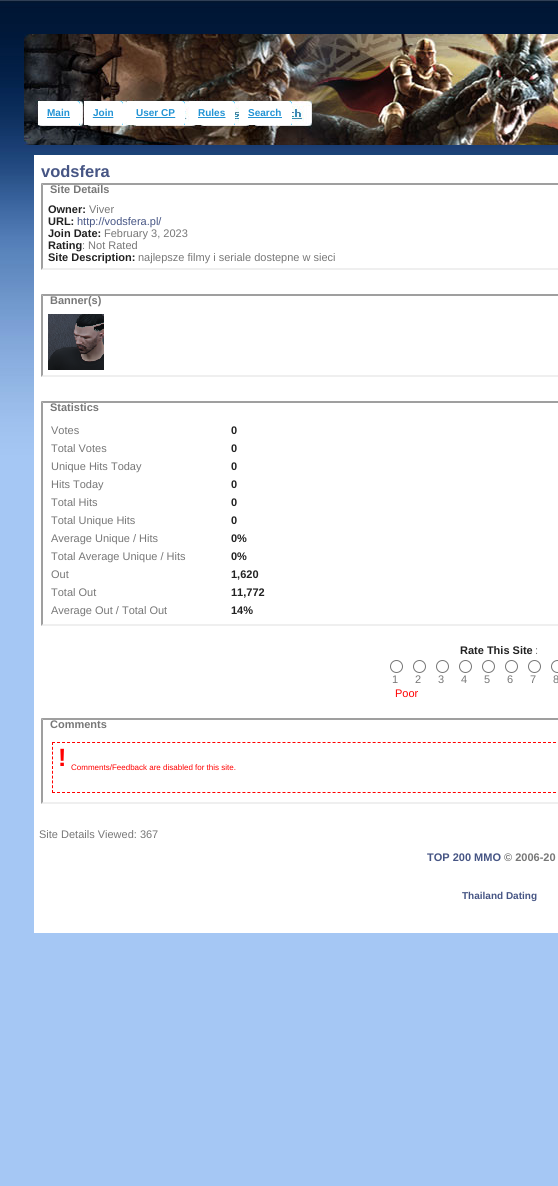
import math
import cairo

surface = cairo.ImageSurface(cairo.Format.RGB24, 558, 1186)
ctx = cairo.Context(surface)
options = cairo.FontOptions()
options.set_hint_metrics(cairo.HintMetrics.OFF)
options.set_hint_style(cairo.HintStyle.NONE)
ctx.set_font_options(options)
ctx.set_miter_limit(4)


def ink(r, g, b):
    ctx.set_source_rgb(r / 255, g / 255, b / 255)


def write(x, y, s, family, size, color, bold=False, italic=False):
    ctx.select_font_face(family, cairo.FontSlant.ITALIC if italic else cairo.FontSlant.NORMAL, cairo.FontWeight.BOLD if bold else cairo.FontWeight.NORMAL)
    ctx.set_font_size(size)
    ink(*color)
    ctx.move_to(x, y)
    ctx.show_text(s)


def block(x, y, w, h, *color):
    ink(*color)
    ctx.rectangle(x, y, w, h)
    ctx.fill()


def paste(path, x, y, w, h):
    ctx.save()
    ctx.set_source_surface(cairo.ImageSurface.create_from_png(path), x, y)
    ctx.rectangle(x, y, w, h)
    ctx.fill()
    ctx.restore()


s1 = dict(family="Liberation Sans", size=10, color=(34, 147, 212), bold=True)
s2 = dict(family="Liberation Sans", size=16.5, color=(70, 85, 132), bold=True)
s3 = dict(family="Liberation Sans", size=11, color=(119, 119, 119), bold=True)
s4 = dict(family="Liberation Sans", size=11, color=(34, 34, 34), bold=True)
s5 = dict(family="Liberation Sans", size=11, color=(119, 119, 119))
s6 = dict(family="Liberation Sans", size=11, color=(70, 85, 132))
s7 = dict(family="Liberation Sans", size=11, color=(255, 0, 0))
s8 = dict(family="Liberation Sans", size=25, color=(255, 0, 0), bold=True)
s9 = dict(family="Liberation Sans", size=8, color=(255, 0, 0))
s10 = dict(family="Liberation Sans", size=11, color=(70, 85, 132), bold=True)
s11 = dict(family="Liberation Sans", size=10, color=(70, 85, 132), bold=True)

ink(255, 255, 255)
ctx.paint()
paste("pic1.png", 0, 0, 558, 1186)
paste("pic2.png", 24, 34, 534, 111)
block(38, 101, 4, 24, 255, 255, 255)
paste("pic3.png", 42, 101, 38, 24)
write(47, 116, "Main", **s1)
block(69, 117, 1, 1, 34, 147, 212)
block(84, 101, 4, 24, 255, 255, 255)
paste("pic4.png", 88, 101, 35, 24)
write(93, 116, "Join", **s1)
block(127, 101, 4, 24, 255, 255, 255)
paste("pic5.png", 131, 101, 54, 24)
write(136, 116, "User CP", **s1)
block(136, 117, 1, 1, 34, 147, 212)
block(189, 101, 4, 24, 255, 255, 255)
paste("pic6.png", 193, 101, 42, 24)
write(198, 116, "Rules", **s1)
block(198, 117, 1, 1, 34, 147, 212)
block(239, 101, 4, 24, 255, 255, 255)
paste("pic7.png", 243, 101, 49, 24)
write(248, 116, "Search", **s1)
block(248, 117, 34, 1, 34, 147, 212)
block(34, 155, 524, 778, 255, 255, 255)
write(41, 177, "vodsfera", **s2)
ink(159, 159, 159)
ctx.new_path()
ctx.move_to(41, 183)
ctx.line_to(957, 183)
ctx.line_to(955, 185)
ctx.line_to(43, 185)
ctx.close_path()
ctx.fill()
ink(239, 239, 239)
ctx.new_path()
ctx.move_to(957, 270)
ctx.line_to(41, 270)
ctx.line_to(43, 268)
ctx.line_to(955, 268)
ctx.close_path()
ctx.fill()
ink(159, 159, 159)
ctx.new_path()
ctx.move_to(41, 270)
ctx.line_to(41, 183)
ctx.line_to(43, 185)
ctx.line_to(43, 268)
ctx.close_path()
ctx.fill()
write(50, 193, "Site Details", **s3)
write(48, 213, "Owner:", **s4)
write(89, 213, "Viver", **s5)
write(48, 225, "URL:", **s4)
write(77, 225, "http://vodsfera.pl/", **s6)
write(48, 237, "Join Date:", **s4)
write(104, 237, "February 3, 2023", **s5)
write(48, 249, "Rating", **s4)
write(82, 249, ": Not Rated", **s5)
write(48, 261, "Site Description:", **s4)
write(138, 261, "najlepsze filmy i seriale dostepne w sieci", **s5)
ink(159, 159, 159)
ctx.new_path()
ctx.move_to(41, 294)
ctx.line_to(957, 294)
ctx.line_to(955, 296)
ctx.line_to(43, 296)
ctx.close_path()
ctx.fill()
ink(239, 239, 239)
ctx.new_path()
ctx.move_to(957, 377)
ctx.line_to(41, 377)
ctx.line_to(43, 375)
ctx.line_to(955, 375)
ctx.close_path()
ctx.fill()
ink(159, 159, 159)
ctx.new_path()
ctx.move_to(41, 377)
ctx.line_to(41, 294)
ctx.line_to(43, 296)
ctx.line_to(43, 375)
ctx.close_path()
ctx.fill()
write(50, 304, "Banner(s)", **s3)
paste("pic8.png", 48, 314, 56, 56)
ink(159, 159, 159)
ctx.new_path()
ctx.move_to(41, 401)
ctx.line_to(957, 401)
ctx.line_to(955, 403)
ctx.line_to(43, 403)
ctx.close_path()
ctx.fill()
ink(239, 239, 239)
ctx.new_path()
ctx.move_to(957, 626)
ctx.line_to(41, 626)
ctx.line_to(43, 624)
ctx.line_to(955, 624)
ctx.close_path()
ctx.fill()
ink(159, 159, 159)
ctx.new_path()
ctx.move_to(41, 626)
ctx.line_to(41, 401)
ctx.line_to(43, 403)
ctx.line_to(43, 624)
ctx.close_path()
ctx.fill()
write(50, 411, "Statistics", **s3)
write(51, 434, "Votes", **s5)
write(231, 434, "0", **s4)
write(51, 452, "Total Votes", **s5)
write(231, 452, "0", **s4)
write(51, 470, "Unique Hits Today", **s5)
write(231, 470, "0", **s4)
write(51, 488, "Hits Today", **s5)
write(231, 488, "0", **s4)
write(51, 506, "Total Hits", **s5)
write(231, 506, "0", **s4)
write(51, 524, "Total Unique Hits", **s5)
write(231, 524, "0", **s4)
write(51, 542, "Average Unique / Hits", **s5)
write(231, 542, "0%", **s4)
write(51, 560, "Total Average Unique / Hits", **s5)
write(231, 560, "0%", **s4)
write(51, 578, "Out", **s5)
write(231, 578, "1,620", **s4)
write(51, 596, "Total Out", **s5)
write(231, 596, "11,772", **s4)
write(51, 614, "Average Out / Total Out", **s5)
write(231, 614, "14%", **s4)
write(460, 654, "Rate This Site", **s4)
write(535, 654, ":", **s5)
ctx.new_path()
ctx.arc(396.5, 666.5, 6, 0, 2 * math.pi)
ink(118, 118, 118)
ctx.set_line_width(1)
ctx.stroke()
write(392, 683, "1", **s5)
ctx.new_path()
ctx.arc(419.5, 666.5, 6, 0, 2 * math.pi)
ink(118, 118, 118)
ctx.stroke()
write(415, 683, "2", **s5)
ctx.new_path()
ctx.arc(442.5, 666.5, 6, 0, 2 * math.pi)
ink(118, 118, 118)
ctx.stroke()
write(438, 683, "3", **s5)
ctx.new_path()
ctx.arc(465.5, 666.5, 6, 0, 2 * math.pi)
ink(118, 118, 118)
ctx.stroke()
write(461, 683, "4", **s5)
ctx.new_path()
ctx.arc(488.5, 666.5, 6, 0, 2 * math.pi)
ink(118, 118, 118)
ctx.stroke()
write(484, 683, "5", **s5)
ctx.new_path()
ctx.arc(511.5, 666.5, 6, 0, 2 * math.pi)
ink(118, 118, 118)
ctx.stroke()
write(507, 683, "6", **s5)
ctx.new_path()
ctx.arc(534.5, 666.5, 6, 0, 2 * math.pi)
ink(118, 118, 118)
ctx.stroke()
write(530, 683, "7", **s5)
ctx.new_path()
ctx.arc(557.5, 666.5, 6, 0, 2 * math.pi)
ink(118, 118, 118)
ctx.stroke()
write(553, 683, "8", **s5)
write(395, 697, "Poor", **s7)
ink(159, 159, 159)
ctx.new_path()
ctx.move_to(41, 718)
ctx.line_to(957, 718)
ctx.line_to(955, 720)
ctx.line_to(43, 720)
ctx.close_path()
ctx.fill()
ink(239, 239, 239)
ctx.new_path()
ctx.move_to(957, 804)
ctx.line_to(41, 804)
ctx.line_to(43, 802)
ctx.line_to(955, 802)
ctx.close_path()
ctx.fill()
ink(159, 159, 159)
ctx.new_path()
ctx.move_to(41, 804)
ctx.line_to(41, 718)
ctx.line_to(43, 720)
ctx.line_to(43, 802)
ctx.close_path()
ctx.fill()
write(50, 728, "Comments", **s3)
ctx.new_path()
ctx.move_to(52, 742.5)
ctx.line_to(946, 742.5)
ink(255, 0, 0)
ctx.set_dash([3, 2.01])
ctx.stroke()
ctx.new_path()
ctx.move_to(52, 792.5)
ctx.line_to(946, 792.5)
ctx.stroke()
ctx.new_path()
ctx.move_to(52.5, 742)
ctx.line_to(52.5, 793)
ctx.set_dash([3, 1.8])
ctx.stroke()
write(58, 766, "!", **s8)
write(71, 770, "Comments/Feedback are disabled for this site.", **s9)
write(39, 838, "Site Details Viewed: 367", **s5)
write(427, 861, "TOP 200 MMO", **s10)
write(504, 861, "© 2006-20", **s3)
write(462, 899, "Thailand Dating", **s11)
surface.write_to_png("screenshot.png")
